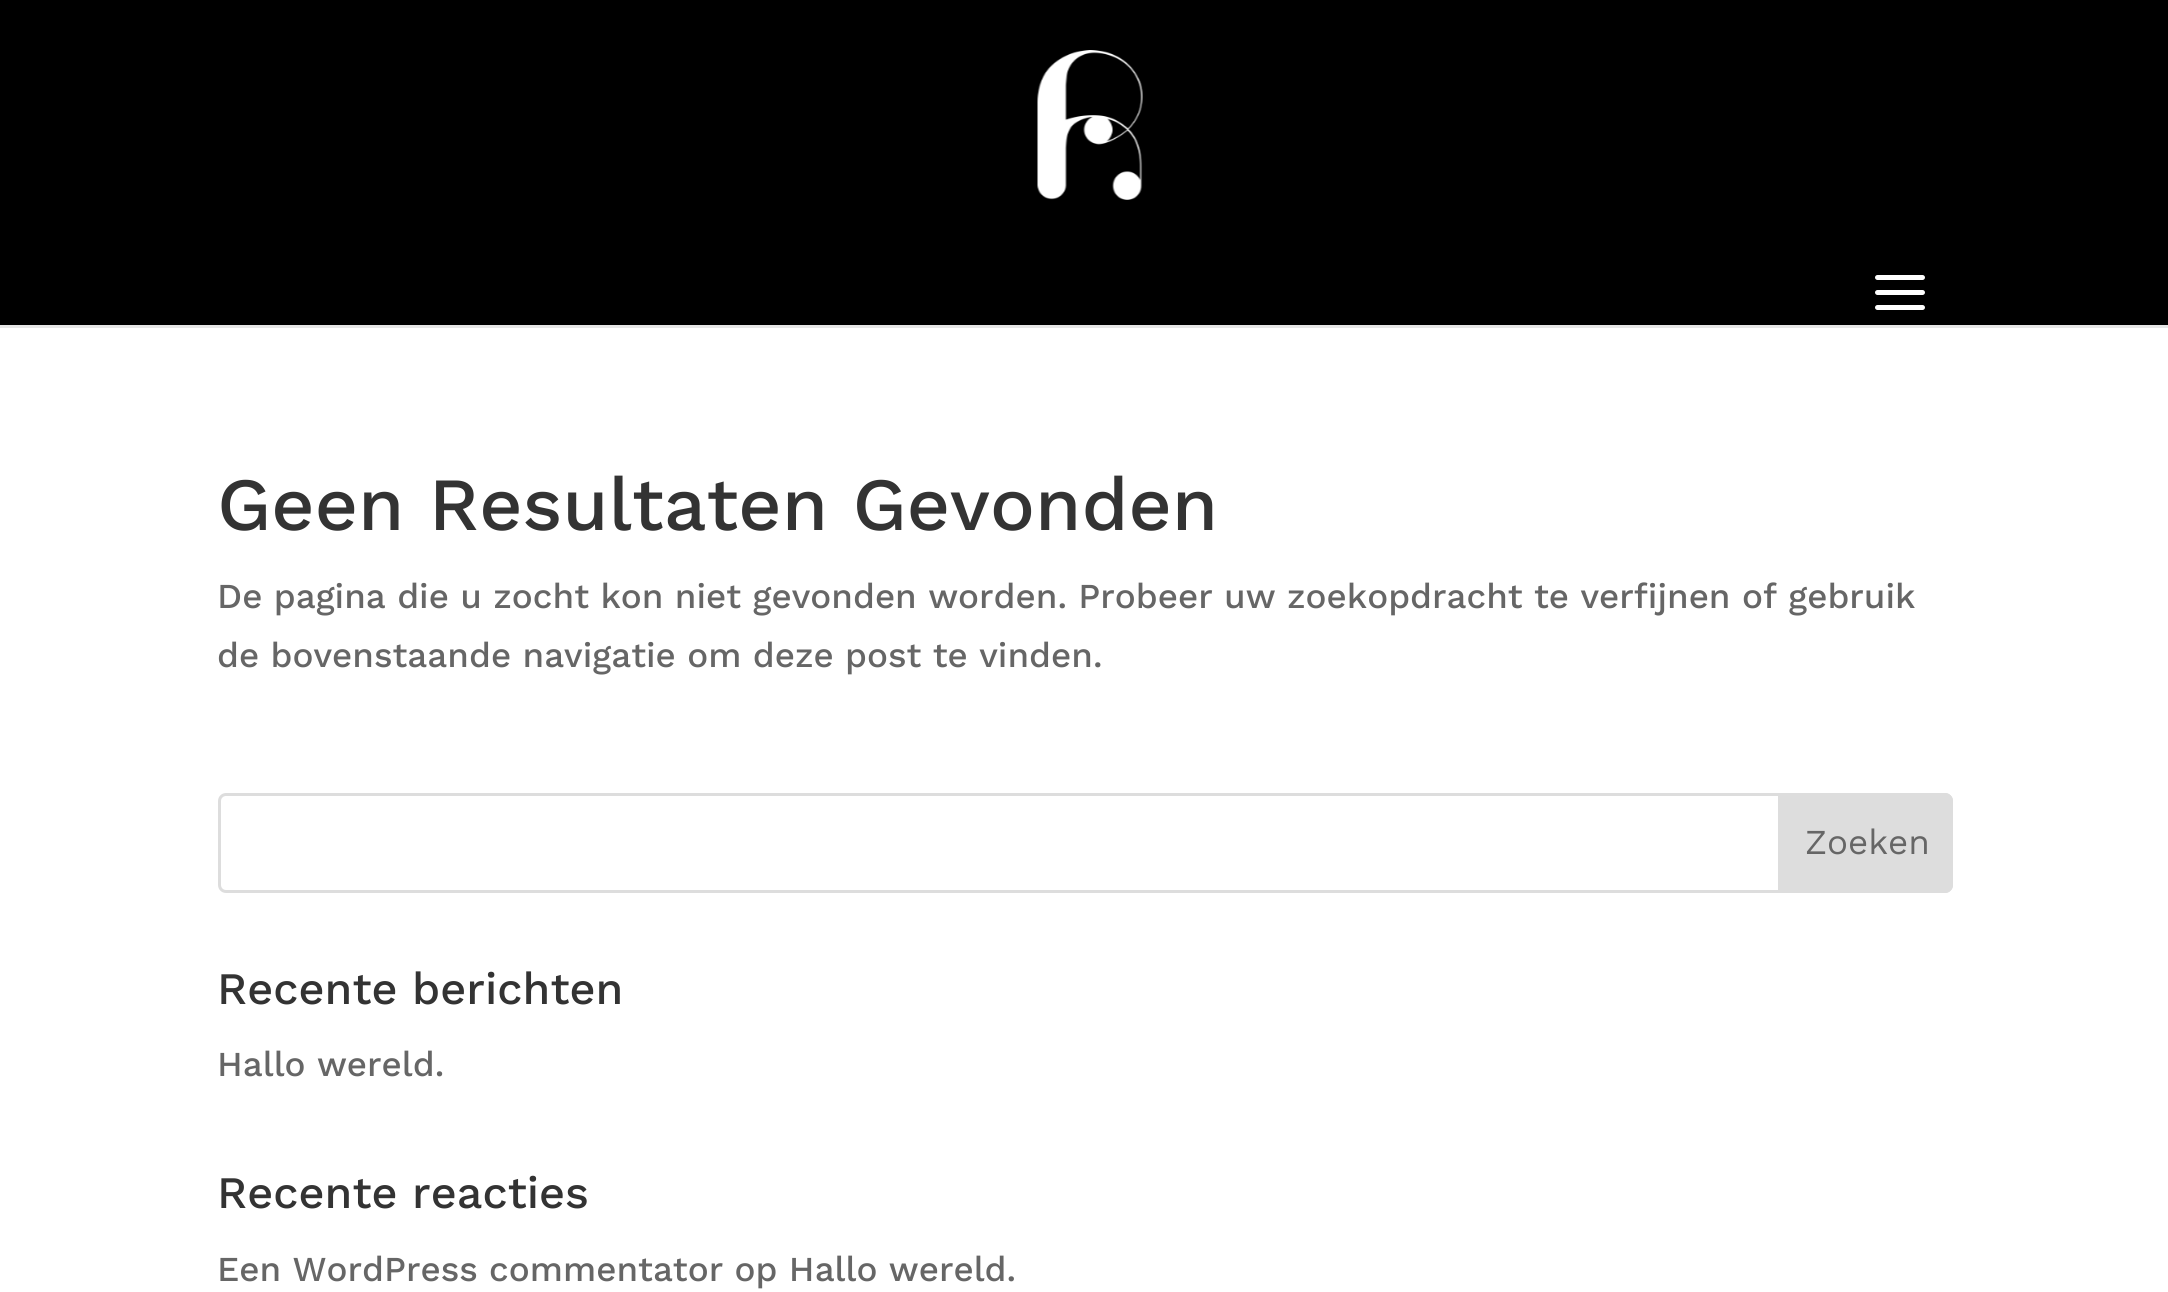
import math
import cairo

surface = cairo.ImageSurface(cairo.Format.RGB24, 2168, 1292)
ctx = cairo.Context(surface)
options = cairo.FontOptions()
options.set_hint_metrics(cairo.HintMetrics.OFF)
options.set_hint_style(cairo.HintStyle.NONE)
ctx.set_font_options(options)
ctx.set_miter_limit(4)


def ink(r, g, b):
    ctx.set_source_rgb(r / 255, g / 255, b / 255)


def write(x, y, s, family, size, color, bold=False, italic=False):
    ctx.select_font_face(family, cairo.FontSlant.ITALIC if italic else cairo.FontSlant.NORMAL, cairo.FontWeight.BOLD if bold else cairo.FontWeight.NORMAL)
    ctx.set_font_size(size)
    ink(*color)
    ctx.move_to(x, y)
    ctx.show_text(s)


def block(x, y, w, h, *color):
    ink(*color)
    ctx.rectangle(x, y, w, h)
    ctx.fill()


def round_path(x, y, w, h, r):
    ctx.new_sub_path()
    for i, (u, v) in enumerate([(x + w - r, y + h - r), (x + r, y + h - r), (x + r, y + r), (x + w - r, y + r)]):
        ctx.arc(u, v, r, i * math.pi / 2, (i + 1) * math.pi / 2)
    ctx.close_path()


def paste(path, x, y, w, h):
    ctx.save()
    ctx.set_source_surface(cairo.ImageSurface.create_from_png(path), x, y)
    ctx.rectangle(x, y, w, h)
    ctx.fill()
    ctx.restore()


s1 = dict(family="Work Sans Medium", size=75, color=(51, 51, 51))
s2 = dict(family="Work Sans Medium", size=35, color=(102, 102, 102))
s3 = dict(family="Work Sans", size=35, color=(102, 102, 102))
s4 = dict(family="Work Sans Medium", size=45, color=(51, 51, 51))

ink(255, 255, 255)
ctx.paint()
block(0, 325, 2168, 3, 230, 230, 230)
block(0, 0, 2168, 325, 0, 0, 0)
paste("pic1.png", 1037, 50, 106, 150)
paste("pic2.png", 1875, 275, 50, 35)
write(217, 530, "Geen Resultaten Gevonden", **s1)
write(217, 608, "De pagina die u zocht kon niet gevonden worden. Probeer uw zoekopdracht te verfijnen of gebruik", **s2)
write(217, 667, "de bovenstaande navigatie om deze post te vinden.", **s2)
round_path(219.5, 794.5, 1732, 97, 6.5)
ink(221, 221, 221)
ctx.set_line_width(3)
ctx.stroke()
ctx.new_path()
ctx.move_to(1779.5, 794.5)
ctx.line_to(1945, 794.5)
ctx.curve_to(1948.5, 794.5, 1951.5, 797.5, 1951.5, 801)
ctx.line_to(1951.5, 885)
ctx.curve_to(1951.5, 888.5, 1948.5, 891.5, 1945, 891.5)
ctx.line_to(1779.5, 891.5)
ctx.close_path()
ctx.fill_preserve()
ctx.stroke()
write(1805, 854, "Zoeken", **s3)
write(217, 1004, "Recente berichten", **s4)
write(217, 1076, "Hallo wereld.", **s2)
write(217, 1208, "Recente reacties", **s4)
write(217, 1281, "Een WordPress commentator op Hallo wereld.", **s2)
surface.write_to_png("screenshot.png")
